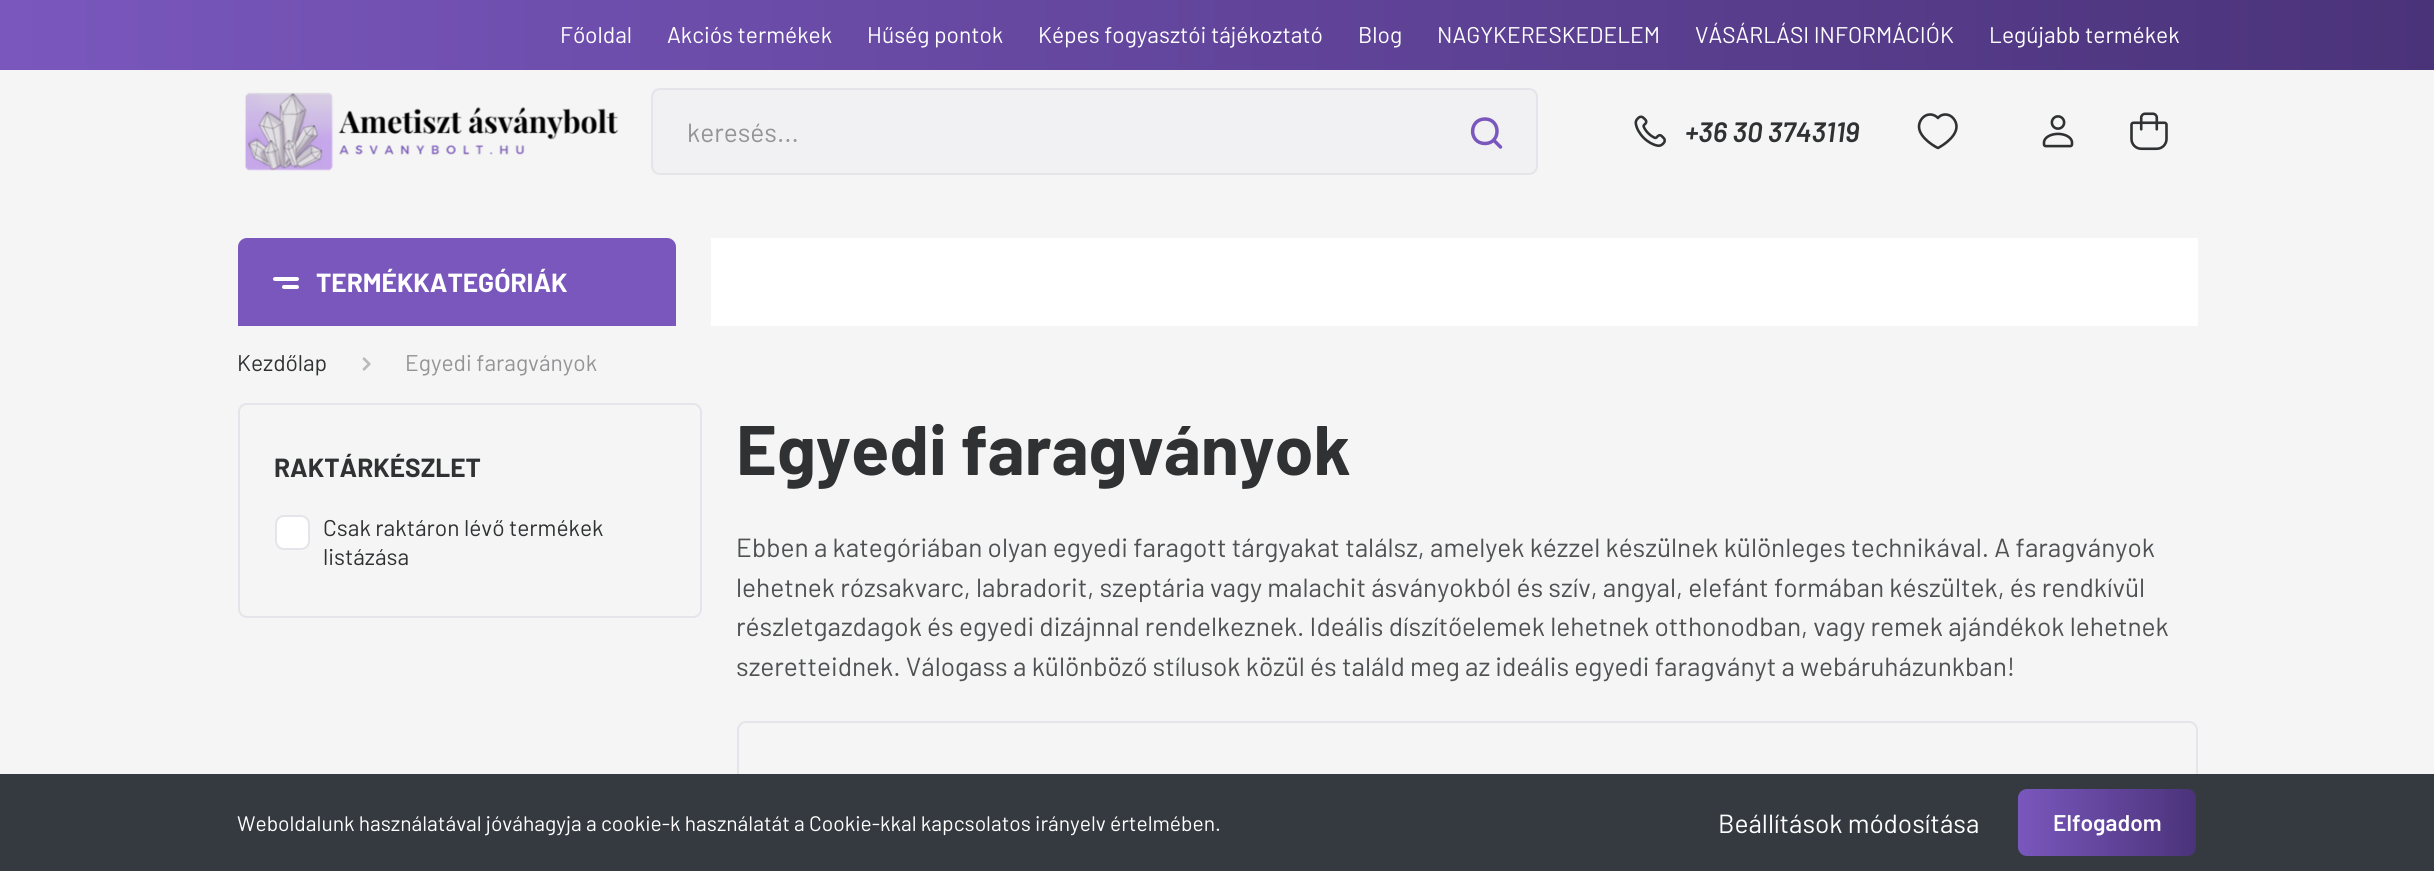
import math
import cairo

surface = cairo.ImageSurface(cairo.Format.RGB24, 2434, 871)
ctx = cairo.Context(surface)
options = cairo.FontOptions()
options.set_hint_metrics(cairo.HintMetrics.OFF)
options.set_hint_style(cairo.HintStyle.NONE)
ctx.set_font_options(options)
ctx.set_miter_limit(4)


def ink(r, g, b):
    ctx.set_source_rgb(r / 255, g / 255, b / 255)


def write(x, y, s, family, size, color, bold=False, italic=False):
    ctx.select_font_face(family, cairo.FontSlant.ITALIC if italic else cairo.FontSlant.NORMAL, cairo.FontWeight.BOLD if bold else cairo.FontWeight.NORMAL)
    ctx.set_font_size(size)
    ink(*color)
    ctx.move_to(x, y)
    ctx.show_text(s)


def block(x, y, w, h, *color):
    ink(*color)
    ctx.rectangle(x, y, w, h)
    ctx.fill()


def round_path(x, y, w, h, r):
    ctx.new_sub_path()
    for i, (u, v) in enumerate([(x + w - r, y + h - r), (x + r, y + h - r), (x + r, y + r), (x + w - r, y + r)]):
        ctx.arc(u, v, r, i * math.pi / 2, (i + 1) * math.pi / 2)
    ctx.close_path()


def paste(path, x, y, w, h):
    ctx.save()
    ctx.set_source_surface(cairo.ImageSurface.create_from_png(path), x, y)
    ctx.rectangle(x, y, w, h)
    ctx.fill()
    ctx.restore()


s1 = dict(family="Barlow", size=22.75, color=(255, 255, 255))
s2 = dict(family="Barlow", size=26.25, color=(148, 148, 150))
s3 = dict(family="Barlow SemiBold", size=28, color=(47, 49, 50), italic=True)
s4 = dict(family="Barlow", size=26.25, color=(255, 255, 255), bold=True)
s5 = dict(family="Barlow", size=22.75, color=(47, 49, 50))
s6 = dict(family="Barlow", size=22.75, color=(148, 148, 150))
s7 = dict(family="Barlow", size=26.25, color=(47, 49, 50), bold=True)
s8 = dict(family="Barlow", size=70, color=(47, 49, 50), bold=True)
s9 = dict(family="Barlow", size=26.25, color=(79, 81, 83))
s10 = dict(family="Barlow", size=21, color=(255, 255, 255))
s11 = dict(family="Barlow", size=26.25, color=(255, 255, 255))
s12 = dict(family="Barlow SemiBold", size=22.75, color=(255, 255, 255))

ink(245, 245, 245)
ctx.paint()
gradient = cairo.LinearGradient(0, 35, 2434, 35)
gradient.add_color_stop_rgba(0, 0.475, 0.341, 0.741, 1)
gradient.add_color_stop_rgba(1, 0.294, 0.2, 0.478, 1)
ctx.set_source(gradient)
ctx.rectangle(0, 0, 2434, 70)
ctx.fill()
write(560, 43, "Főoldal", **s1)
write(667, 43, "Akciós termékek", **s1)
write(867, 43, "Hűség pontok", **s1)
write(1038, 43, "Képes fogyasztói tájékoztató", **s1)
write(1358, 43, "Blog", **s1)
write(1437, 43, "NAGYKERESKEDELEM", **s1)
write(1695, 43, "VÁSÁRLÁSI INFORMÁCIÓK", **s1)
write(1989, 43, "Legújabb termékek", **s1)
paste("pic1.png", 245, 92, 374, 79)
ink(241, 241, 244)
round_path(652, 89, 885, 85, 8)
ctx.fill_preserve()
ink(228, 228, 234)
ctx.stroke()
write(687, 142, "keresés...", **s2)
ctx.new_path()
ctx.move_to(1500.5, 147)
ctx.line_to(1493.5, 140)
ctx.move_to(1485, 143.5)
ctx.curve_to(1468.5, 143.5, 1468.5, 119, 1485, 119)
ctx.curve_to(1501, 119, 1501, 143.5, 1485, 143.5)
ctx.close_path()
ink(121, 87, 189)
ctx.set_line_width(3.5)
ctx.set_line_cap(cairo.LineCap.ROUND)
ctx.set_line_join(cairo.LineJoin.ROUND)
ctx.stroke()
paste("pic2.png", 1634, 115, 32, 32)
write(1685, 142, "+36 30 3743119", **s3)
ctx.new_path()
ctx.move_to(1945.5, 114.5)
ctx.curve_to(1952, 114.5, 1956.5, 121, 1956.5, 126.5)
ctx.curve_to(1956.5, 138.5, 1938, 148, 1938, 148)
ctx.curve_to(1937.5, 148, 1919, 138.5, 1919, 126.5)
ctx.curve_to(1919, 121, 1923.5, 114.5, 1930, 114.5)
ctx.curve_to(1934, 114.5, 1936.5, 116.5, 1938, 118)
ctx.curve_to(1939, 116.5, 1941.5, 114.5, 1945.5, 114.5)
ctx.close_path()
ctx.set_line_width(2.6)
ctx.stroke()
paste("pic3.png", 2042, 115, 32, 33)
paste("pic4.png", 2130, 112, 38, 39)
ink(121, 87, 189)
ctx.new_path()
ctx.move_to(247, 238)
ctx.line_to(667, 238)
ctx.curve_to(672, 238, 676, 242, 676, 247)
ctx.line_to(676, 326)
ctx.line_to(238, 326)
ctx.line_to(238, 247)
ctx.curve_to(238, 242, 242, 238, 247, 238)
ctx.close_path()
ctx.fill()
ink(255, 255, 255)
round_path(273, 277, 26, 4, 2)
ctx.fill()
round_path(282, 285, 17, 4, 2)
ctx.fill()
write(316, 292, "TERMÉKKATEGÓRIÁK", **s4)
block(711, 238, 1487, 88, 255, 255, 255)
write(237, 371, "Kezdőlap", **s5)
paste("pic5.png", 362, 357, 9, 14)
write(405, 371, "Egyedi faragványok", **s6)
round_path(239, 404, 462, 213, 8)
ink(228, 228, 234)
ctx.set_line_width(2)
ctx.set_line_cap(cairo.LineCap.BUTT)
ctx.set_line_join(cairo.LineJoin.MITER)
ctx.stroke()
write(274, 477, "RAKTÁRKÉSZLET", **s7)
ink(255, 255, 255)
round_path(276, 516, 33, 33, 8)
ctx.fill_preserve()
ink(228, 228, 234)
ctx.stroke()
write(323, 536, "Csak raktáron lévő termékek", **s5)
write(323, 565, "listázása", **s5)
write(736, 475, "Egyedi faragványok", **s8)
write(736, 557, "Ebben a kategóriában olyan egyedi faragott tárgyakat találsz, amelyek kézzel készülnek különleges technikával. A faragványok", **s9)
write(736, 597, "lehetnek rózsakvarc, labradorit, szeptária vagy malachit ásványokból és szív, angyal, elefánt formában készültek, és rendkívül", **s9)
write(736, 636, "részletgazdagok és egyedi dizájnnal rendelkeznek. Ideális díszítőelemek lehetnek otthonodban, vagy remek ajándékok lehetnek", **s9)
write(736, 676, "szeretteidnek. Válogass a különböző stílusok közül és találd meg az ideális egyedi faragványt a webáruházunkban!", **s9)
round_path(738, 722, 1459, 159, 8)
ink(228, 228, 234)
ctx.stroke()
block(0, 774, 2434, 97, 52, 58, 64)
write(237, 831, "Weboldalunk használatával jóváhagyja a cookie-k használatát a Cookie-kkal kapcsolatos irányelv értelmében.", **s10)
write(1718, 833, "Beállítások módosítása", **s11)
gradient = cairo.LinearGradient(2018, 823, 2196, 823)
gradient.add_color_stop_rgba(0, 0.475, 0.341, 0.741, 1)
gradient.add_color_stop_rgba(1, 0.294, 0.2, 0.478, 1)
ctx.set_source(gradient)
round_path(2018, 789, 178, 67, 9)
ctx.fill()
write(2053, 831, "Elfogadom", **s12)
surface.write_to_png("screenshot.png")
